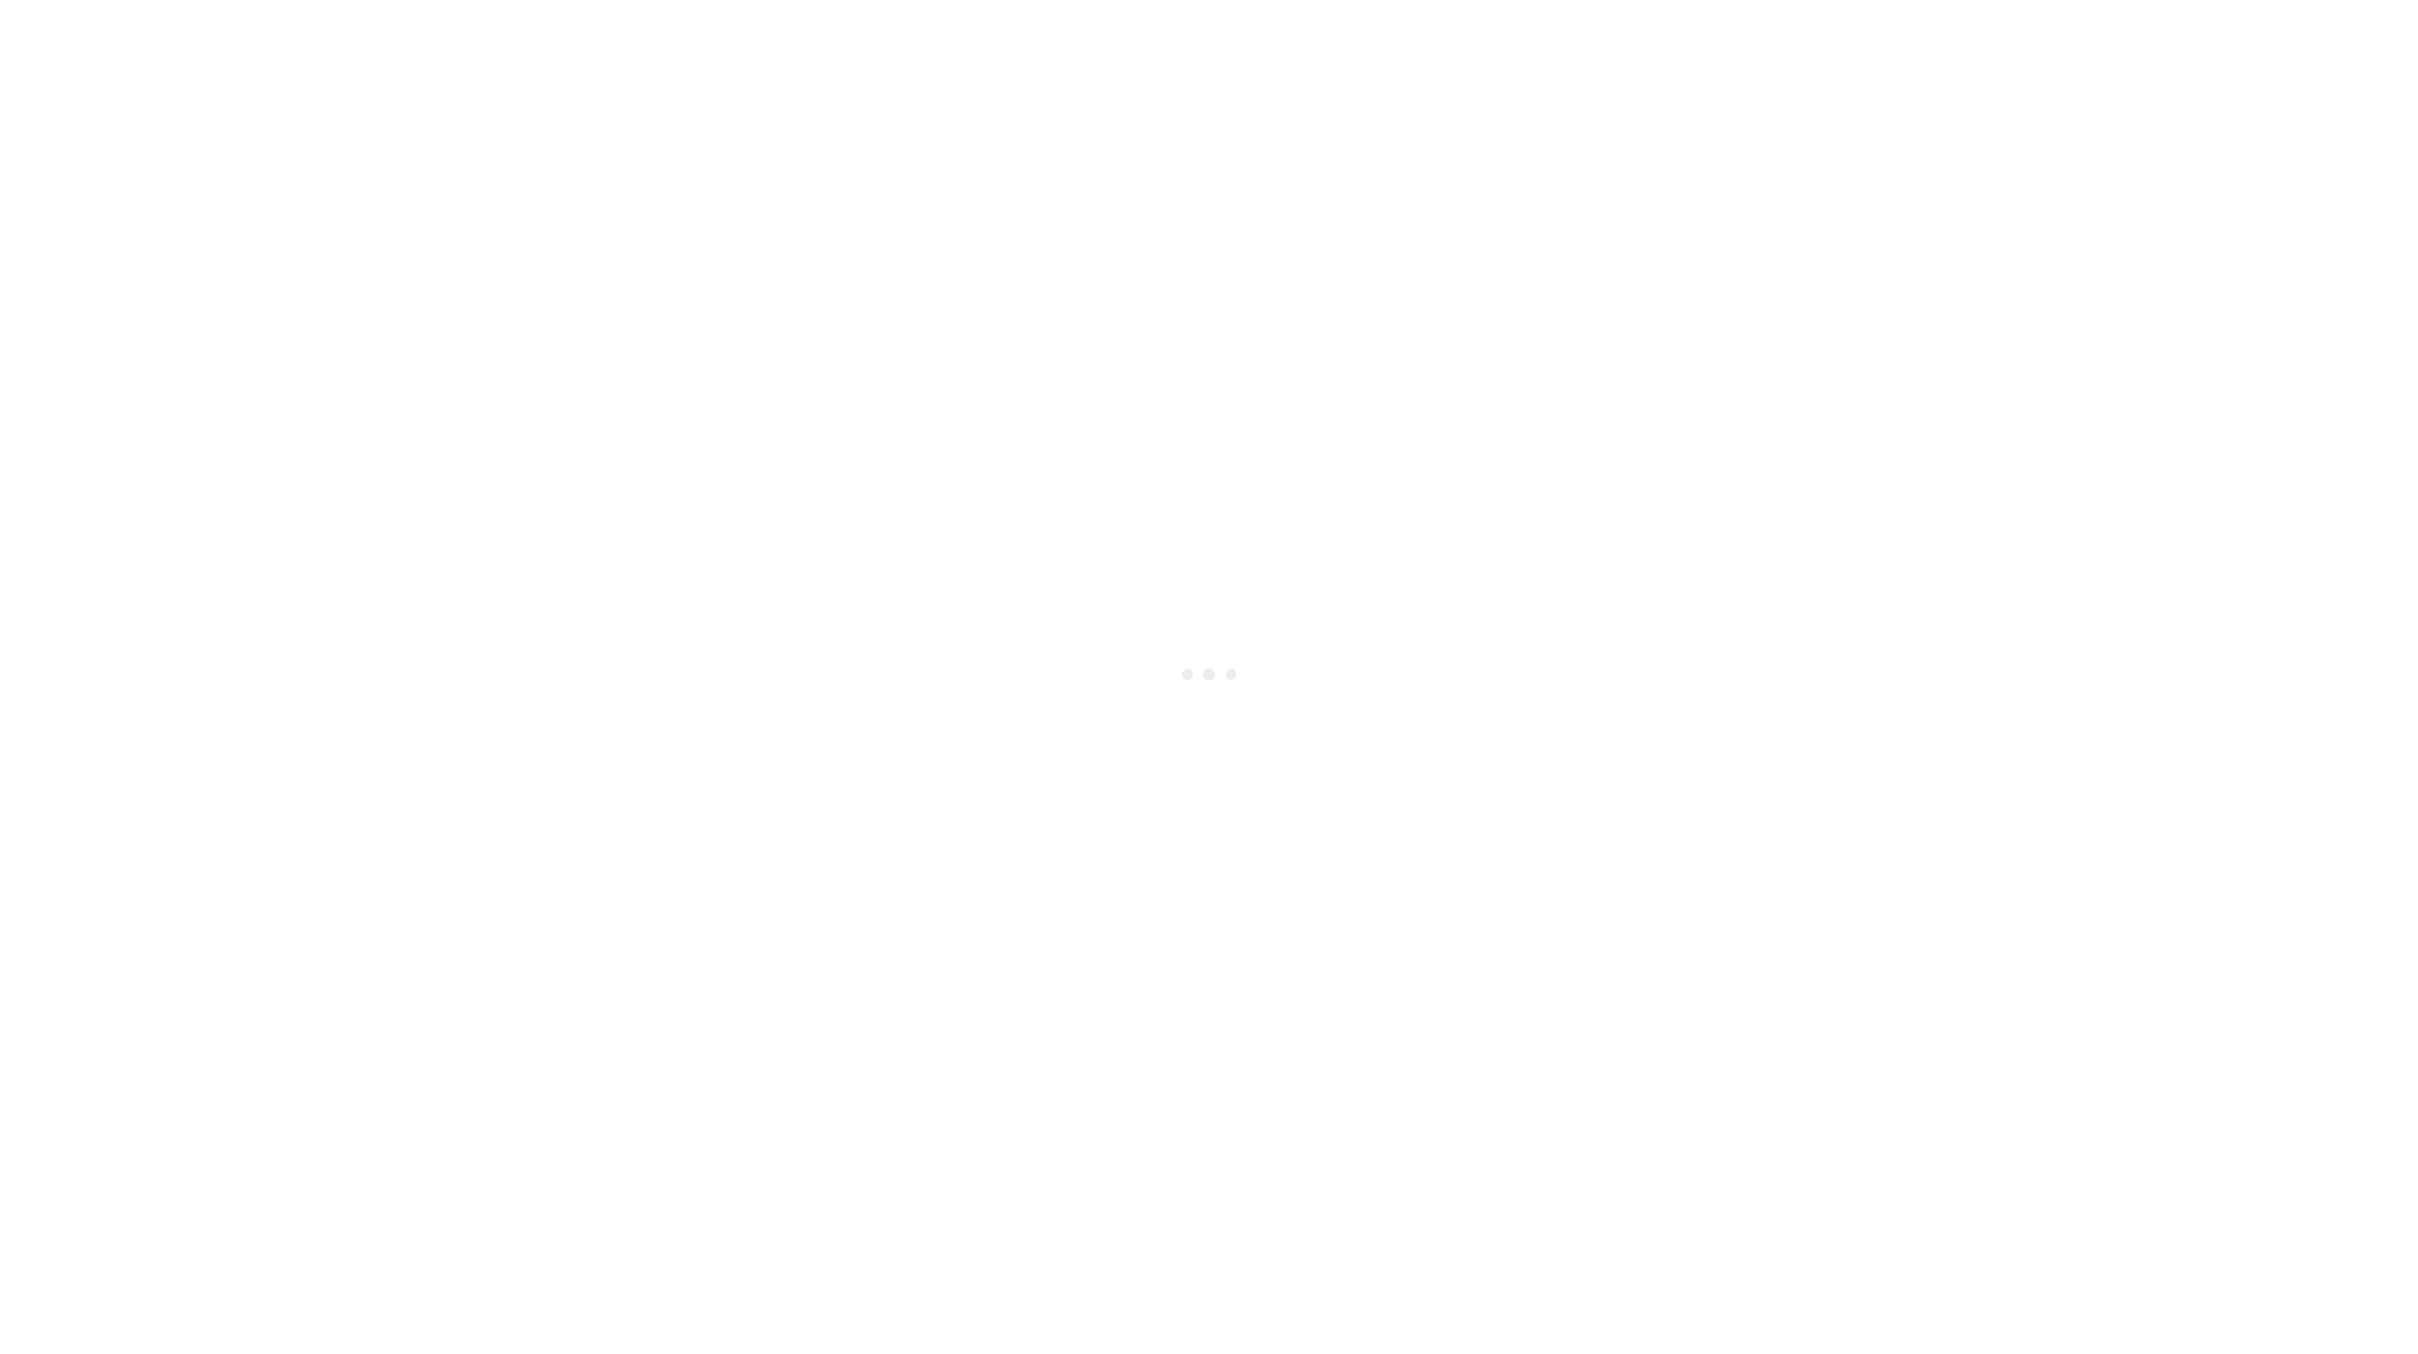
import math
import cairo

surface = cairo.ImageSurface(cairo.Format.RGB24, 2418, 1354)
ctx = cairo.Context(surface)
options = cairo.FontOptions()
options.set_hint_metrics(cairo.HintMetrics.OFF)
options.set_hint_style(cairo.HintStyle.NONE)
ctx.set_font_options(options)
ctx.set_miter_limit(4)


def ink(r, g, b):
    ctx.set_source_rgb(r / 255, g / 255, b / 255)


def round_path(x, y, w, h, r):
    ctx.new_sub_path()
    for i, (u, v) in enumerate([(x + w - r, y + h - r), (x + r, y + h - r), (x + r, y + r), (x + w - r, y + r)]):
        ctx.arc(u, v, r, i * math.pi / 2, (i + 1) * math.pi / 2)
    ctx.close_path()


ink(255, 255, 255)
ctx.paint()
ink(236, 236, 236)
ctx.arc(1187.5, 674.5, 5.5, 0, 2 * math.pi)
ctx.fill()
round_path(1203, 669, 12, 11, 5.5)
ctx.fill()
round_path(1226, 669, 10, 11, 5)
ctx.fill()
surface.write_to_png("screenshot.png")
